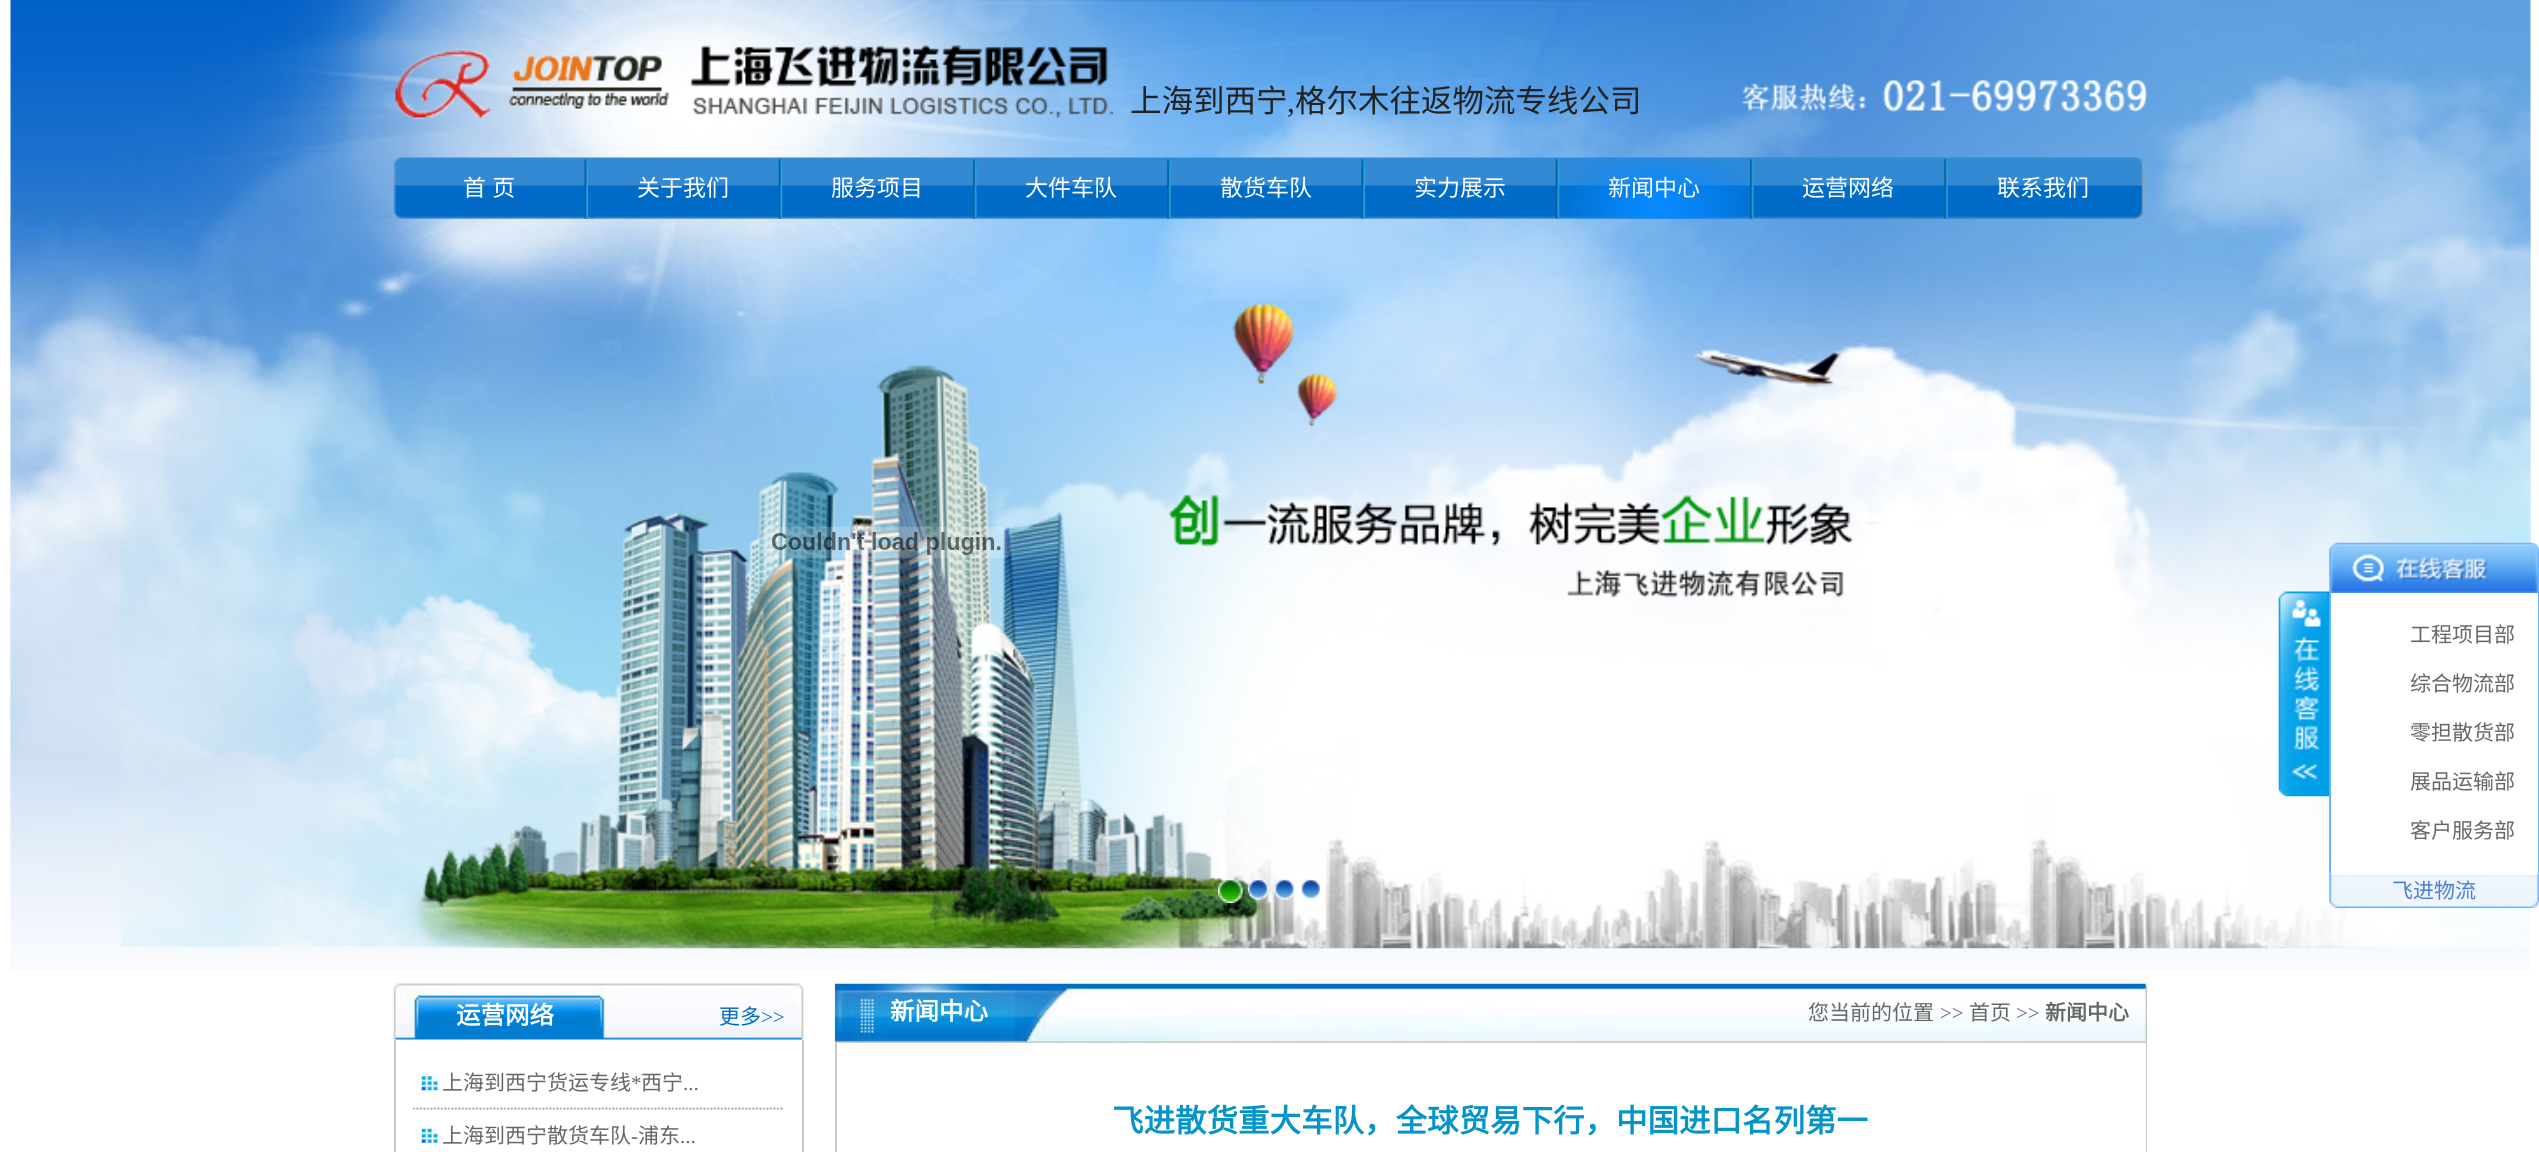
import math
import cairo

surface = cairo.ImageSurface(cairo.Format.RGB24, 2539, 1152)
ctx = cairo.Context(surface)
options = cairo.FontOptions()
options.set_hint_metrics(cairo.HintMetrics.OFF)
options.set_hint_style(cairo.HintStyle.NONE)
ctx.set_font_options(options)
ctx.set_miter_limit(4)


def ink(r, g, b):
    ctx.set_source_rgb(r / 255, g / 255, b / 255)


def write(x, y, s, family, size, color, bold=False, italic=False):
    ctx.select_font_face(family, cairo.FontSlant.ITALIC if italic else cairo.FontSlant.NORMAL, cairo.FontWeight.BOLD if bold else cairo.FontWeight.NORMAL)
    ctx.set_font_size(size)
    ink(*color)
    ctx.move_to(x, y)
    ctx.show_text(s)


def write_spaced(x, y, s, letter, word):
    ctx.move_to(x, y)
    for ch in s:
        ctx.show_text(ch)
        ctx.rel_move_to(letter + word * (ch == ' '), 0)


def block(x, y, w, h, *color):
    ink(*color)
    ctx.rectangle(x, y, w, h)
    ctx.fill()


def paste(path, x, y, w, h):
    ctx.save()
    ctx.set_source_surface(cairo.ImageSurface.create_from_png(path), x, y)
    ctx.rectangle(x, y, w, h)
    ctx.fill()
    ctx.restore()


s1 = dict(family="Noto Sans CJK SC", size=31.5, color=(34, 34, 34))
s2 = dict(family="Liberation Serif", size=31.5, color=(34, 34, 34))
s3 = dict(family="Noto Sans CJK SC", size=23, color=(255, 255, 255))
s4 = dict(family="Noto Sans CJK SC", size=24.5, color=(255, 255, 255), bold=True)
s5 = dict(family="Noto Sans CJK SC", size=21, color=(0, 108, 199))
s6 = dict(family="Liberation Serif", size=21, color=(0, 108, 199))
s7 = dict(family="Noto Sans CJK SC", size=21, color=(102, 102, 102))
s8 = dict(family="Liberation Serif", size=21, color=(102, 102, 102))
s9 = dict(family="Noto Sans CJK SC", size=21, color=(102, 102, 102), bold=True)
s10 = dict(family="Noto Sans CJK SC", size=31.5, color=(6, 147, 201), bold=True)
s11 = dict(family="Noto Sans CJK SC", size=21, color=(75, 127, 213))

ink(255, 255, 255)
ctx.paint()
paste("pic1.png", 10, 0, 2521, 972)
paste("pic2.png", 395, 45, 718, 75)
write(1130, 112, "上海到西宁", **s1)
write(1287, 112, ",", **s2)
write(1295, 112, "格尔木往返物流专线公司", **s1)
paste("pic3.png", 1741, 80, 406, 32)
paste("pic4.png", 393, 157, 1753, 62)
paste("pic5.png", 584, 159, 4, 60)
ctx.set_font_size(23)
ink(255, 255, 255)
write_spaced(463, 196, "首 页", 0, 1)
paste("pic6.png", 778, 159, 5, 60)
write(637, 196, "关于我们", **s3)
paste("pic7.png", 973, 159, 4, 60)
write(831, 196, "服务项目", **s3)
paste("pic8.png", 1167, 159, 4, 60)
write(1025, 196, "大件车队", **s3)
paste("pic9.png", 1361, 159, 4, 60)
write(1220, 196, "散货车队", **s3)
paste("pic10.png", 1555, 159, 5, 60)
write(1414, 196, "实力展示", **s3)
paste("pic11.png", 1750, 159, 4, 60)
paste("pic12.png", 1559, 157, 191, 62)
write(1608, 196, "新闻中心", **s3)
paste("pic13.png", 1944, 159, 4, 60)
write(1802, 196, "运营网络", **s3)
write(1997, 196, "联系我们", **s3)
paste("pic14.png", 10, 218, 2521, 731)
paste("pic15.png", 761, 526, 251, 33)
paste("pic16.png", 1218, 878, 25, 25)
paste("pic17.png", 1247, 878, 22, 22)
paste("pic18.png", 1274, 879, 21, 21)
paste("pic19.png", 1301, 879, 19, 20)
paste("pic20.png", 393, 983, 411, 57)
write(456, 1024, "运营网络", **s4)
write(719, 1024, "更多", **s5)
write(761, 1024, ">>", **s6)
block(802, 1040, 2, 112, 201, 201, 201)
block(394, 1040, 2, 112, 201, 201, 201)
paste("pic21.png", 413, 1107, 371, 3)
paste("pic22.png", 421, 1076, 17, 15)
write(442, 1090, "上海到西宁货运专线", **s7)
write(631, 1090, "*", **s8)
write(641, 1090, "西宁", **s7)
write(683, 1090, "...", **s8)
paste("pic23.png", 421, 1128, 17, 15)
write(442, 1143, "上海到西宁散货车队", **s7)
write(631, 1143, "-", **s8)
write(638, 1143, "浦东", **s7)
write(680, 1143, "...", **s8)
paste("pic24.png", 834, 983, 1314, 60)
write(890, 1020, "新闻中心", **s4)
write(1808, 1020, "您当前的位置", **s7)
write(1940, 1020, ">>", **s8)
write(1969, 1020, "首页", **s7)
write(2016, 1020, ">>", **s8)
write(2045, 1020, "新闻中心", **s9)
block(2146, 1043, 1, 109, 201, 201, 201)
block(835, 1043, 2, 109, 201, 201, 201)
write(1112, 1132, "飞进散货重大车队，全球贸易下行，中国进口名列第一", **s10)
paste("pic26.png", 2329, 542, 210, 51)
block(2329, 593, 2, 280, 104, 181, 253)
paste("pic25.png", 2278, 591, 52, 206)
block(2331, 593, 200, 280, 255, 255, 255)
block(2538, 593, 1, 280, 104, 181, 253)
write(2410, 642, "工程项目部", **s7)
write(2410, 691, "综合物流部", **s7)
write(2410, 740, "零担散货部", **s7)
write(2410, 789, "展品运输部", **s7)
write(2410, 838, "客户服务部", **s7)
paste("pic27.png", 2329, 873, 210, 36)
write(2392, 898, "飞进物流", **s11)
surface.write_to_png("screenshot.png")
